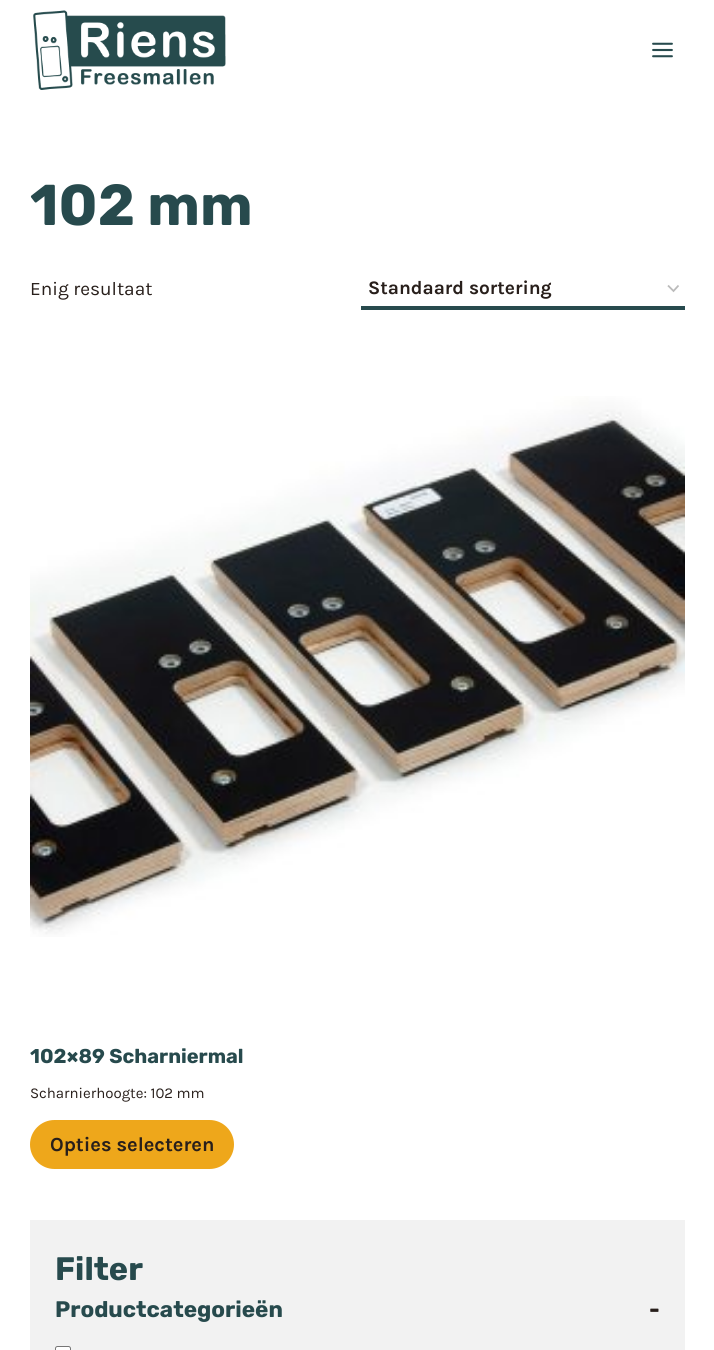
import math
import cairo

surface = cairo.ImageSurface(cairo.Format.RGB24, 714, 1350)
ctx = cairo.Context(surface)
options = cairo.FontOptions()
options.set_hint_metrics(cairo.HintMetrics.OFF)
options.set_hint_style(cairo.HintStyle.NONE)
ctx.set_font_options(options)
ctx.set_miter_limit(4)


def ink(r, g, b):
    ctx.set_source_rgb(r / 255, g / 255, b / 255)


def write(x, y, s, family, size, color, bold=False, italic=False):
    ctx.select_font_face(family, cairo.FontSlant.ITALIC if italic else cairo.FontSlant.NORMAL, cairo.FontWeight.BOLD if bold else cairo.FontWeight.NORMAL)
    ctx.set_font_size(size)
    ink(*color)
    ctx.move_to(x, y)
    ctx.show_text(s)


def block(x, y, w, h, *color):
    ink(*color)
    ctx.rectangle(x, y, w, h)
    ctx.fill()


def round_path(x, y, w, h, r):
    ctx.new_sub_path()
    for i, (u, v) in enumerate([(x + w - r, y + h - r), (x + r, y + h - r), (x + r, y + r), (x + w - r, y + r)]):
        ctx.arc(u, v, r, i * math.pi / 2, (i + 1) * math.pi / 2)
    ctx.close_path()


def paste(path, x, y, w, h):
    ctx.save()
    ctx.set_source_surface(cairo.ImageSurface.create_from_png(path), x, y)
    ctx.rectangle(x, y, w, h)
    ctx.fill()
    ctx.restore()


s1 = dict(family="Rubik Light", size=57.5, color=(39, 74, 77))
s2 = dict(family="Karla", size=19.1, color=(40, 31, 27))
s3 = dict(family="Karla", size=19.1, color=(40, 31, 27), bold=True)
s4 = dict(family="Rubik Light", size=20, color=(39, 74, 77))
s5 = dict(family="Karla", size=15, color=(40, 31, 27))
s6 = dict(family="Karla", size=20, color=(40, 31, 27), bold=True)
s7 = dict(family="Rubik Light", size=32.5, color=(39, 74, 77))
s8 = dict(family="Rubik Light", size=22.5, color=(39, 74, 77))
s9 = dict(family="Rubik Light", size=22.5, color=(40, 31, 27))

ink(255, 255, 255)
ctx.paint()
paste("pic1.png", 33, 10, 193, 80)
paste("pic2.png", 652, 42, 21, 16)
write(30, 225, "102 mm", **s1)
write(30, 295, "Enig resultaat", **s2)
ctx.new_path()
ctx.move_to(668, 285.5)
ctx.line_to(673.5, 291)
ctx.line_to(678.5, 285.5)
ink(187, 187, 187)
ctx.set_line_width(1.8)
ctx.stroke()
block(361, 306, 324, 4, 39, 74, 77)
write(368, 294, "Standaard sortering", **s3)
paste("pic3.png", 30, 396, 655, 541)
write(30, 1063, "102×89 Scharniermal", **s4)
write(30, 1098, "Scharnierhoogte: 102 mm", **s5)
ink(238, 167, 27)
round_path(30, 1120, 204, 49, 24.5)
ctx.fill()
write(50, 1151, "Opties selecteren", **s6)
block(30, 1220, 655, 130, 242, 242, 242)
write(55, 1280, "Filter", **s7)
write(55, 1317, "Productcategorieën", **s8)
write(649, 1317, "-", **s9)
ink(255, 255, 255)
round_path(55.5, 1346.5, 15, 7, 2)
ctx.fill_preserve()
ink(118, 118, 118)
ctx.set_line_width(1)
ctx.stroke()
surface.write_to_png("screenshot.png")
